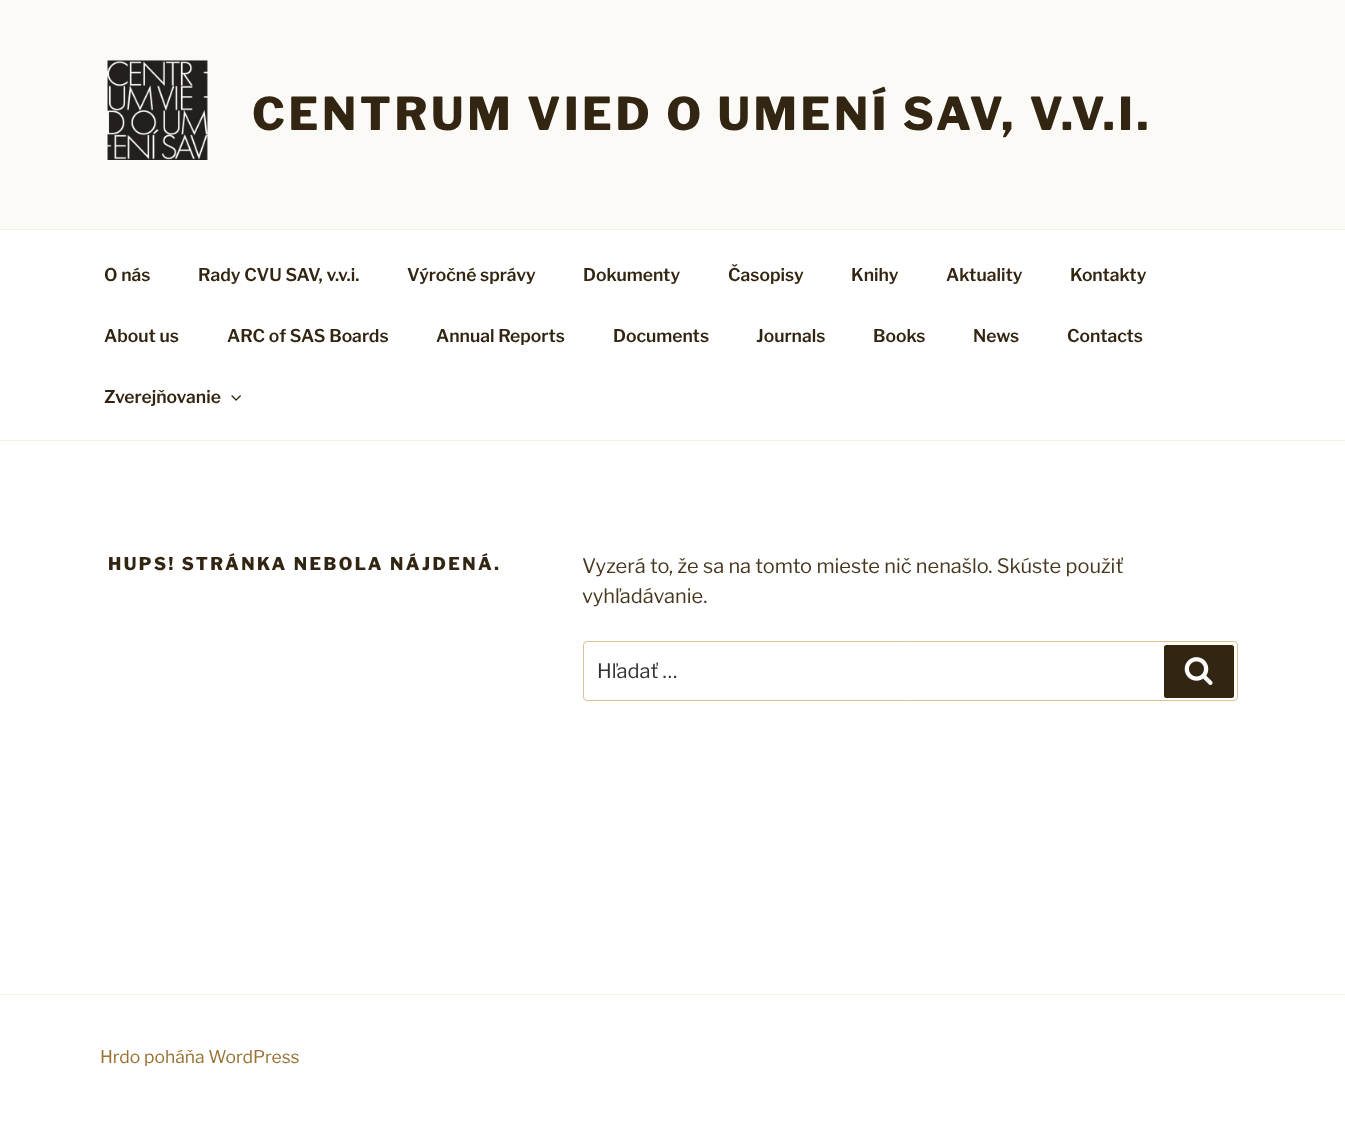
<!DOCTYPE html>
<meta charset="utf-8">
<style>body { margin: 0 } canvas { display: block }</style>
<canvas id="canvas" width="1345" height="1132"></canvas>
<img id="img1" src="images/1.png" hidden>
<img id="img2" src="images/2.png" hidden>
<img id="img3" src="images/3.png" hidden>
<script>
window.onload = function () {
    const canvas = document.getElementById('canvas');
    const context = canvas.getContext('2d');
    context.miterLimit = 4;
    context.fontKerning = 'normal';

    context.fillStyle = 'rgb(255, 255, 255)';
    context.fillRect(0, 0, 1345, 1132);
    context.fillStyle = 'rgb(252, 250, 247)';
    context.fillRect(0, 0, 1345, 229);
    context.drawImage(document.getElementById('img1'), 107, 60, 101, 100);
    context.fillStyle = 'rgb(246, 239, 228)';
    context.fillRect(0, 229, 1345, 1);
    context.fillRect(0, 440, 1345, 1);
    context.drawImage(document.getElementById('img2'), 231, 395, 10, 6);
    context.beginPath();
    context.roundRect(583.5, 641.5, 654, 59, 3.5);
    context.strokeStyle = 'rgb(221, 194, 152)';
    context.stroke();
    context.fillStyle = 'rgb(50, 37, 17)';
    context.beginPath();
    context.roundRect(1164, 645, 70, 53, 2.5);
    context.fill();
    context.drawImage(document.getElementById('img3'), 1184, 657, 29, 28);
    context.fillStyle = 'rgb(246, 239, 228)';
    context.fillRect(0, 994, 1345, 1);
    context.letterSpacing = '3.6px';
    context.font = '800 45px Libre Franklin';
    context.fillStyle = 'rgb(50, 37, 17)';
    context.fillText('CENTRUM VIED O UMENÍ SAV, V.V.I.', 252, 130);
    context.letterSpacing = '0px';
    context.font = '600 17.5px Libre Franklin';
    context.fillText('O nás', 104, 281);
    context.fillText('Rady CVU SAV, v.v.i.', 198, 281);
    context.fillText('Výročné správy', 407, 281);
    context.fillText('Dokumenty', 583, 281);
    context.fillText('Časopisy', 728, 281);
    context.fillText('Knihy', 851, 281);
    context.fillText('Aktuality', 946, 281);
    context.fillText('Kontakty', 1070, 281);
    context.fillText('About us', 104, 342);
    context.fillText('ARC of SAS Boards', 227, 342);
    context.fillText('Annual Reports', 436, 342);
    context.fillText('Documents', 613, 342);
    context.fillText('Journals', 756, 342);
    context.fillText('Books', 873, 342);
    context.fillText('News', 973, 342);
    context.fillText('Contacts', 1067, 342);
    context.fillText('Zverejňovanie', 104, 403);
    context.letterSpacing = '2.45px';
    context.font = '800 17.5px Libre Franklin';
    context.fillText('HUPS! STRÁNKA NEBOLA NÁJDENÁ.', 108, 570);
    context.letterSpacing = '0px';
    context.font = '20px Libre Franklin';
    context.fillStyle = 'rgb(71, 56, 31)';
    context.fillText('Vyzerá to, že sa na tomto mieste nič nenašlo. Skúste použiť', 582, 573);
    context.fillText('vyhľadávanie.', 582, 603);
    context.fillStyle = 'rgb(51, 51, 51)';
    context.fillText('Hľadať …', 597, 678);
    context.font = '17.5px Libre Franklin';
    context.fillStyle = 'rgb(153, 114, 51)';
    context.fillText('Hrdo poháňa WordPress', 100, 1063);
};
</script>
